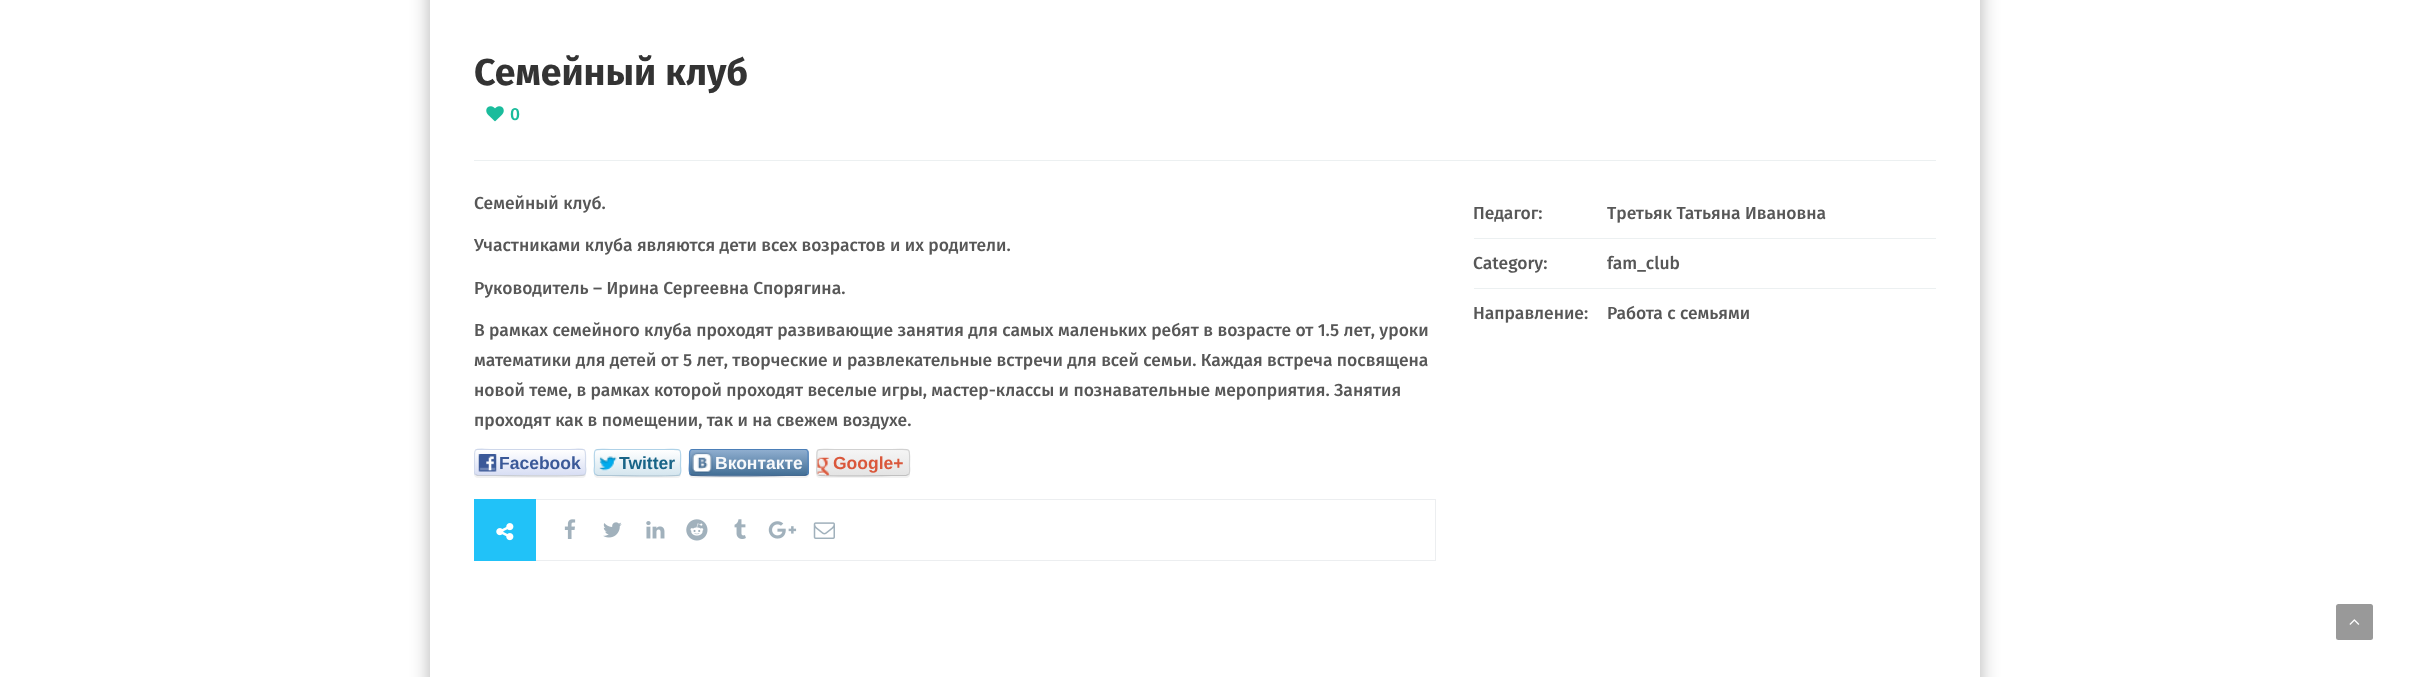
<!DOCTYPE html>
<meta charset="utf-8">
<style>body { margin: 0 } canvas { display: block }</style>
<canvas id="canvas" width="2410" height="677"></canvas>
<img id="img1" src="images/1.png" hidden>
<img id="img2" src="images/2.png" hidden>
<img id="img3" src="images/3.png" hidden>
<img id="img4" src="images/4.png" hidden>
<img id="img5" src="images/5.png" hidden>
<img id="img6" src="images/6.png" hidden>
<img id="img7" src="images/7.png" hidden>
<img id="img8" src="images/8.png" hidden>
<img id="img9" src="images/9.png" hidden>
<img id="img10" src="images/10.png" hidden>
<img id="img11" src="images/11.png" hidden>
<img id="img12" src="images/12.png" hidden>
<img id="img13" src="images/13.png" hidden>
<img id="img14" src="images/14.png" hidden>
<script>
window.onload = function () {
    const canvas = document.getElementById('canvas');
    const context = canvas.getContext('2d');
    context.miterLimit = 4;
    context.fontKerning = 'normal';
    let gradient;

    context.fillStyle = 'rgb(255, 255, 255)';
    context.fillRect(0, 0, 2410, 677);
    context.save();
    context.beginPath();
    context.moveTo(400, 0);
    context.lineTo(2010, 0);
    context.lineTo(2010, 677);
    context.lineTo(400, 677);
    context.closePath();
    context.moveTo(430, -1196);
    context.lineTo(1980, -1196);
    context.lineTo(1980, 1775);
    context.lineTo(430, 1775);
    context.closePath();
    context.clip('evenodd');
    context.fillStyle = 'rgba(0, 0, 0, 0.3)';
    context.filter = 'blur(9.5px)';
    context.beginPath();
    context.rect(430, -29, 1550, 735);
    context.fill();
    context.filter = 'none';
    context.restore();
    context.fillStyle = 'rgb(236, 240, 241)';
    context.fillRect(474, 160, 1462, 1);
    context.drawImage(document.getElementById('img1'), 486, 106, 18, 16);
    context.fillStyle = 'rgba(0, 0, 0, 0.05)';
    context.filter = 'blur(0.5px)';
    context.beginPath();
    context.roundRect(474, 450, 112, 28, 4);
    context.fill();
    context.filter = 'none';
    context.save();
    context.beginPath();
    context.roundRect(474, 449, 112, 27, 4);
    context.clip();
    gradient = context.createLinearGradient(530, 425, 530, 450);
    gradient.addColorStop(0, 'rgb(255, 255, 255)');
    gradient.addColorStop(1, 'rgb(216, 222, 244)');
    context.fillStyle = gradient;
    context.fillRect(474, 449, 112, 1);
    gradient = context.createLinearGradient(530, 450, 530, 475);
    gradient.addColorStop(0, 'rgb(255, 255, 255)');
    gradient.addColorStop(1, 'rgb(216, 222, 244)');
    context.fillStyle = gradient;
    context.fillRect(474, 450, 112, 25);
    context.restore();
    context.beginPath();
    context.moveTo(584.5, 474.5);
    context.lineTo(584, 475);
    context.bezierCurveTo(582, 476.5, 504.5, 475.5, 495, 475.5);
    context.lineTo(477.5, 475.5);
    context.lineTo(475.5, 474.5);
    context.strokeStyle = 'rgba(189, 194, 203, 0.8)';
    context.lineWidth = 1.2;
    context.stroke();
    context.save();
    context.beginPath();
    context.rect(474, 0, 1462, 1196);
    context.clip();
    context.beginPath();
    context.moveTo(475.5, 474.5);
    context.bezierCurveTo(473, 472.5, 474.5, 468, 474.5, 466);
    context.bezierCurveTo(474.5, 445, 471.5, 449.5, 495, 449.5);
    context.lineTo(565, 449.5);
    context.bezierCurveTo(588.5, 449.5, 585.5, 445, 585.5, 466);
    context.bezierCurveTo(585.5, 468, 587, 472.5, 584.5, 474.5);
    context.strokeStyle = 'rgba(202, 212, 231, 0.8)';
    context.stroke();
    context.restore();
    context.drawImage(document.getElementById('img2'), 478, 454, 19, 18);
    context.filter = 'blur(0.5px)';
    context.beginPath();
    context.roundRect(594, 450, 87, 28, 4);
    context.fill();
    context.filter = 'none';
    context.save();
    context.beginPath();
    context.roundRect(594, 449, 87, 27, 4);
    context.clip();
    gradient = context.createLinearGradient(638, 425, 638, 450);
    gradient.addColorStop(0, 'rgb(255, 255, 255)');
    gradient.addColorStop(1, 'rgb(213, 230, 239)');
    context.fillStyle = gradient;
    context.fillRect(594, 449, 87, 1);
    gradient = context.createLinearGradient(638, 450, 638, 475);
    gradient.addColorStop(0, 'rgb(255, 255, 255)');
    gradient.addColorStop(1, 'rgb(213, 230, 239)');
    context.fillStyle = gradient;
    context.fillRect(594, 450, 87, 25);
    context.restore();
    context.beginPath();
    context.moveTo(679.5, 474.5);
    context.lineTo(679.5, 475);
    context.bezierCurveTo(677.5, 476.5, 618.5, 475.5, 611, 475.5);
    context.lineTo(597.5, 475.5);
    context.lineTo(595.5, 474.5);
    context.strokeStyle = 'rgba(158, 186, 204, 0.8)';
    context.stroke();
    context.beginPath();
    context.moveTo(595.5, 474.5);
    context.bezierCurveTo(593, 472.5, 594.5, 468, 594.5, 466);
    context.bezierCurveTo(594.5, 446.5, 591, 449.5, 611, 449.5);
    context.lineTo(664, 449.5);
    context.bezierCurveTo(684, 449.5, 680.5, 446.5, 680.5, 466);
    context.bezierCurveTo(680.5, 468, 682, 472.5, 679.5, 474.5);
    context.strokeStyle = 'rgba(164, 204, 229, 0.8)';
    context.stroke();
    context.drawImage(document.getElementById('img3'), 599, 456, 18, 15);
    context.filter = 'blur(0.5px)';
    context.beginPath();
    context.roundRect(689, 450, 120, 28, 4);
    context.fill();
    context.filter = 'none';
    context.save();
    context.beginPath();
    context.roundRect(689, 449, 120, 27, 4);
    context.clip();
    gradient = context.createLinearGradient(749, 425, 749, 450);
    gradient.addColorStop(0, 'rgb(143, 174, 207)');
    gradient.addColorStop(1, 'rgb(67, 111, 150)');
    context.fillStyle = gradient;
    context.fillRect(689, 449, 120, 1);
    gradient = context.createLinearGradient(749, 450, 749, 475);
    gradient.addColorStop(0, 'rgb(143, 174, 207)');
    gradient.addColorStop(1, 'rgb(67, 111, 150)');
    context.fillStyle = gradient;
    context.fillRect(689, 450, 120, 25);
    gradient = context.createLinearGradient(749, 475, 749, 500);
    gradient.addColorStop(0, 'rgb(143, 174, 207)');
    gradient.addColorStop(1, 'rgb(67, 111, 150)');
    context.fillStyle = gradient;
    context.fillRect(689, 475, 120, 1);
    context.restore();
    context.beginPath();
    context.moveTo(807, 474.5);
    context.lineTo(805, 475.5);
    context.lineTo(786, 475.5);
    context.bezierCurveTo(776.5, 475.5, 693, 476.5, 691, 475);
    context.lineTo(690.5, 474.5);
    context.strokeStyle = 'rgba(52, 88, 127, 0.8)';
    context.stroke();
    context.beginPath();
    context.moveTo(690.5, 474.5);
    context.bezierCurveTo(688, 472.5, 689.5, 465, 689.5, 462.5);
    context.lineTo(689.5, 456);
    context.bezierCurveTo(689.5, 453.5, 689, 449.5, 692.5, 449.5);
    context.lineTo(805, 449.5);
    context.bezierCurveTo(808.5, 449.5, 808, 453.5, 808, 456);
    context.lineTo(808, 462.5);
    context.bezierCurveTo(808, 465, 809.5, 472.5, 807, 474.5);
    context.strokeStyle = 'rgba(78, 131, 193, 0.8)';
    context.stroke();
    context.drawImage(document.getElementById('img4'), 691, 452, 22, 21);
    context.filter = 'blur(0.5px)';
    context.beginPath();
    context.roundRect(816, 450, 94, 28, 4);
    context.fill();
    context.filter = 'none';
    context.save();
    context.beginPath();
    context.roundRect(816, 449, 94, 27, 4);
    context.clip();
    gradient = context.createLinearGradient(863, 425, 863, 450);
    gradient.addColorStop(0, 'rgb(245, 245, 245)');
    gradient.addColorStop(1, 'rgb(228, 228, 228)');
    context.fillStyle = gradient;
    context.fillRect(816, 449, 94, 1);
    gradient = context.createLinearGradient(863, 450, 863, 475);
    gradient.addColorStop(0, 'rgb(245, 245, 245)');
    gradient.addColorStop(1, 'rgb(228, 228, 228)');
    context.fillStyle = gradient;
    context.fillRect(816, 450, 94, 25);
    gradient = context.createLinearGradient(863, 475, 863, 500);
    gradient.addColorStop(0, 'rgb(245, 245, 245)');
    gradient.addColorStop(1, 'rgb(228, 228, 228)');
    context.fillStyle = gradient;
    context.fillRect(816, 475, 94, 1);
    context.restore();
    context.beginPath();
    context.moveTo(908.5, 474.5);
    context.lineTo(906, 475.5);
    context.lineTo(892, 475.5);
    context.bezierCurveTo(884, 475.5, 820, 476.5, 818, 475);
    context.lineTo(818, 474.5);
    context.strokeStyle = 'rgba(179, 179, 179, 0.8)';
    context.stroke();
    context.beginPath();
    context.moveTo(818, 474.5);
    context.bezierCurveTo(815.5, 472.5, 817, 468, 817, 466);
    context.bezierCurveTo(817, 446, 813.5, 449.5, 834.5, 449.5);
    context.lineTo(892, 449.5);
    context.bezierCurveTo(912.5, 449.5, 909.5, 446, 909.5, 466);
    context.bezierCurveTo(909.5, 468, 910.5, 472.5, 908.5, 474.5);
    context.strokeStyle = 'rgba(204, 204, 204, 0.8)';
    context.stroke();
    context.drawImage(document.getElementById('img5'), 817, 457, 13, 19);
    context.fillStyle = 'rgb(33, 194, 248)';
    context.fillRect(474, 499, 62, 62);
    context.drawImage(document.getElementById('img6'), 496, 523, 18, 18);
    context.fillStyle = 'rgb(236, 238, 240)';
    context.fillRect(536, 499, 900, 1);
    context.fillRect(1435, 499, 1, 62);
    context.fillRect(536, 560, 900, 1);
    context.drawImage(document.getElementById('img7'), 564, 519, 12, 20);
    context.drawImage(document.getElementById('img8'), 603, 522, 19, 16);
    context.drawImage(document.getElementById('img9'), 646, 521, 19, 18);
    context.drawImage(document.getElementById('img10'), 686, 519, 22, 22);
    context.drawImage(document.getElementById('img11'), 734, 519, 12, 20);
    context.drawImage(document.getElementById('img12'), 768, 521, 29, 18);
    context.drawImage(document.getElementById('img13'), 813, 522, 22, 17);
    context.fillStyle = 'rgb(236, 240, 241)';
    context.fillRect(1474, 238, 462, 1);
    context.fillRect(1474, 288, 462, 1);
    context.fillStyle = 'rgb(153, 153, 153)';
    context.beginPath();
    context.roundRect(2336, 604, 37, 36, 2.5);
    context.fill();
    context.drawImage(document.getElementById('img14'), 2349, 619, 11, 6);
    context.font = 'bold 37.5px Fira Sans';
    context.fillStyle = 'rgb(51, 51, 51)';
    context.fillText('Семейный клуб', 474, 85);
    context.font = '500 17.5px Fira Sans';
    context.fillStyle = 'rgb(26, 188, 156)';
    context.fillText('0', 510, 120);
    context.fillStyle = 'rgb(87, 87, 87)';
    context.fillText('Семейный клуб.', 474, 209);
    context.fillText('Участниками клуба являются дети всех возрастов и их родители.', 474, 251);
    context.fillText('Руководитель – Ирина Сергеевна Спорягина.', 474, 294);
    context.fillText('В рамках семейного клуба проходят развивающие занятия для самых маленьких ребят в возрасте от 1.5 лет, уроки', 474, 336);
    context.fillText('математики для детей от 5 лет, творческие и развлекательные встречи для всей семьи. Каждая встреча посвящена', 474, 366);
    context.fillText('новой теме, в рамках которой проходят веселые игры, мастер-классы и познавательные мероприятия. Занятия', 474, 396);
    context.fillText('проходят как в помещении, так и на свежем воздухе.', 474, 426);
    context.font = 'bold 17.5px Liberation Sans';
    context.fillStyle = 'rgb(59, 89, 152)';
    context.fillText('Facebook', 499, 469);
    context.fillStyle = 'rgb(24, 100, 135)';
    context.fillText('Twitter', 619, 469);
    context.fillStyle = 'rgb(247, 249, 251)';
    context.fillText('Вконтакте', 715, 469);
    context.fillStyle = 'rgb(218, 87, 59)';
    context.fillText('Google+', 833, 469);
    context.font = '500 17.5px Fira Sans';
    context.fillStyle = 'rgb(87, 87, 87)';
    context.fillText('Педагог:', 1473, 219);
    context.fillText('Третьяк Татьяна Ивановна', 1607, 219);
    context.fillText('Category:', 1473, 269);
    context.fillText('fam_club', 1607, 269);
    context.fillText('Направление:', 1473, 319);
    context.fillText('Работа с семьями', 1607, 319);
};
</script>
